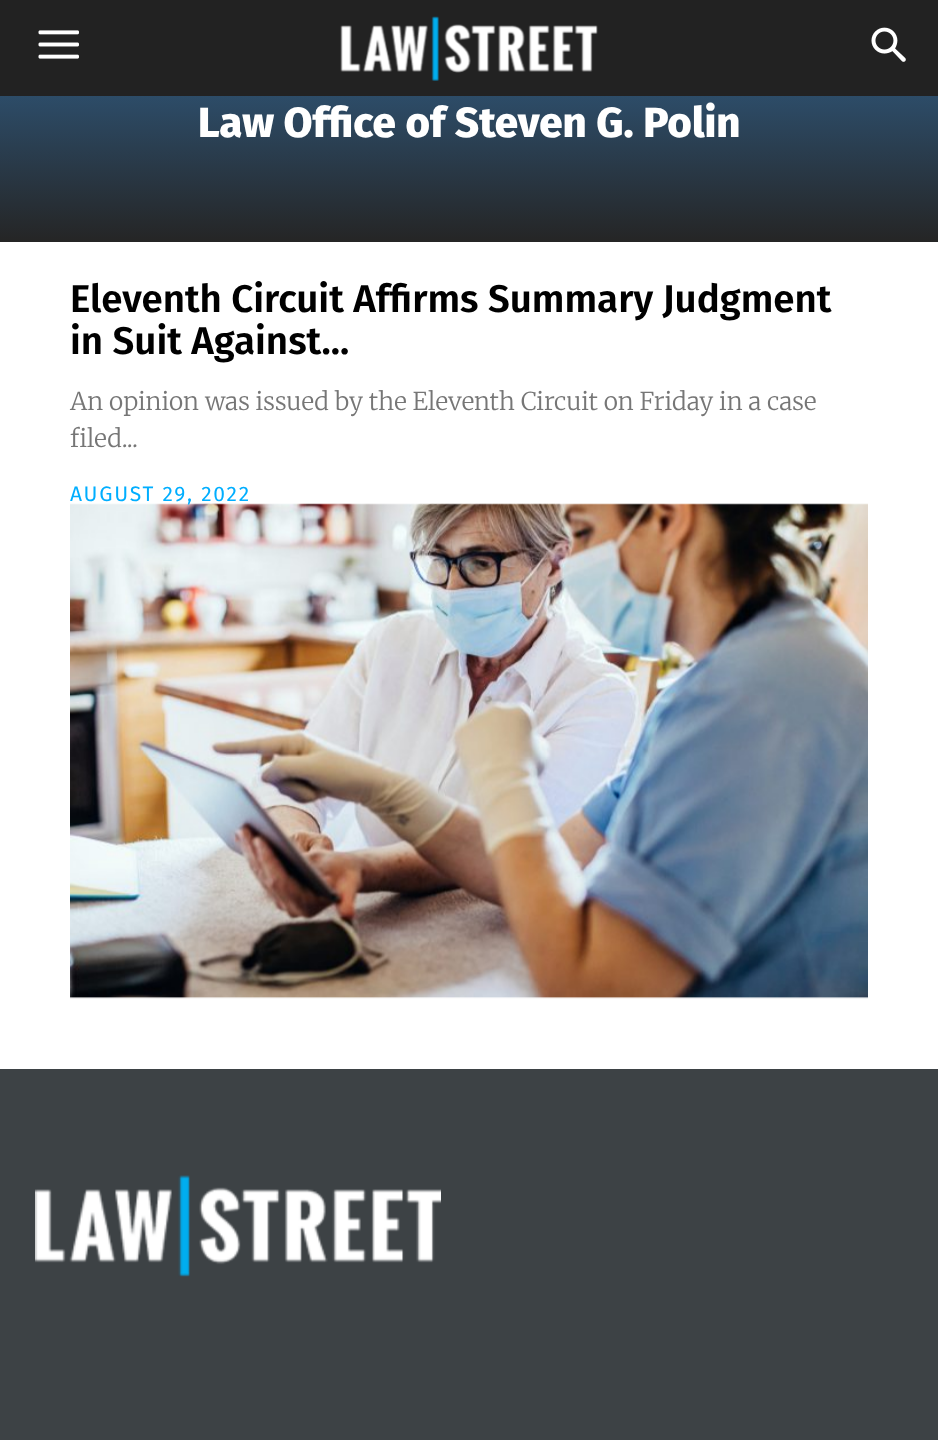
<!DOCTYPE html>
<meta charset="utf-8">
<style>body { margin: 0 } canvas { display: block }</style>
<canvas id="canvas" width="938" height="1440"></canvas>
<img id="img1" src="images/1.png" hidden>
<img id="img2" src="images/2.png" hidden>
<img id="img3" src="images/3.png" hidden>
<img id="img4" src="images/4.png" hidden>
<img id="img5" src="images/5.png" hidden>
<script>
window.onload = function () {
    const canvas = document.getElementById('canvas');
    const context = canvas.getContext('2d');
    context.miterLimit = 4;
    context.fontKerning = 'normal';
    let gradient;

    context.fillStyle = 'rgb(255, 255, 255)';
    context.fillRect(0, 0, 938, 1440);
    context.fillStyle = 'rgb(34, 34, 34)';
    context.fillRect(0, 0, 938, 96);
    context.drawImage(document.getElementById('img1'), 38, 30, 41, 29);
    context.drawImage(document.getElementById('img2'), 340, 16, 258, 65);
    context.drawImage(document.getElementById('img3'), 871, 27, 35, 35);
    gradient = context.createLinearGradient(469, -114, 469, 242);
    gradient.addColorStop(0, 'rgb(56, 132, 200)');
    gradient.addColorStop(1, 'rgb(37, 37, 37)');
    context.fillStyle = gradient;
    context.fillRect(0, 96, 938, 146);
    context.drawImage(document.getElementById('img4'), 70, 503, 798, 496);
    context.fillStyle = 'rgb(61, 66, 69)';
    context.fillRect(0, 1069, 938, 371);
    context.drawImage(document.getElementById('img5'), 35, 1175, 406, 102);
    context.font = '800 42px Fira Sans';
    context.fillStyle = 'rgb(255, 255, 255)';
    context.fillText('Law Office of Steven G. Polin', 198, 137);
    context.font = '600 38.5px Fira Sans';
    context.fillStyle = 'rgb(0, 0, 0)';
    context.fillText('Eleventh Circuit Affirms Summary Judgment', 70, 312);
    context.fillText('in Suit Against...', 70, 354);
    context.font = '300 24.5px Merriweather';
    context.fillStyle = 'rgb(118, 118, 118)';
    context.fillText('An opinion was issued by the Eleventh Circuit on Friday in a case', 70, 410);
    context.fillText('filed...', 70, 447);
    context.letterSpacing = '1.75px';
    context.font = '21px Fira Sans';
    context.fillStyle = 'rgb(0, 174, 255)';
    context.fillText('AUGUST 29, 2022', 70, 501);
};
</script>
